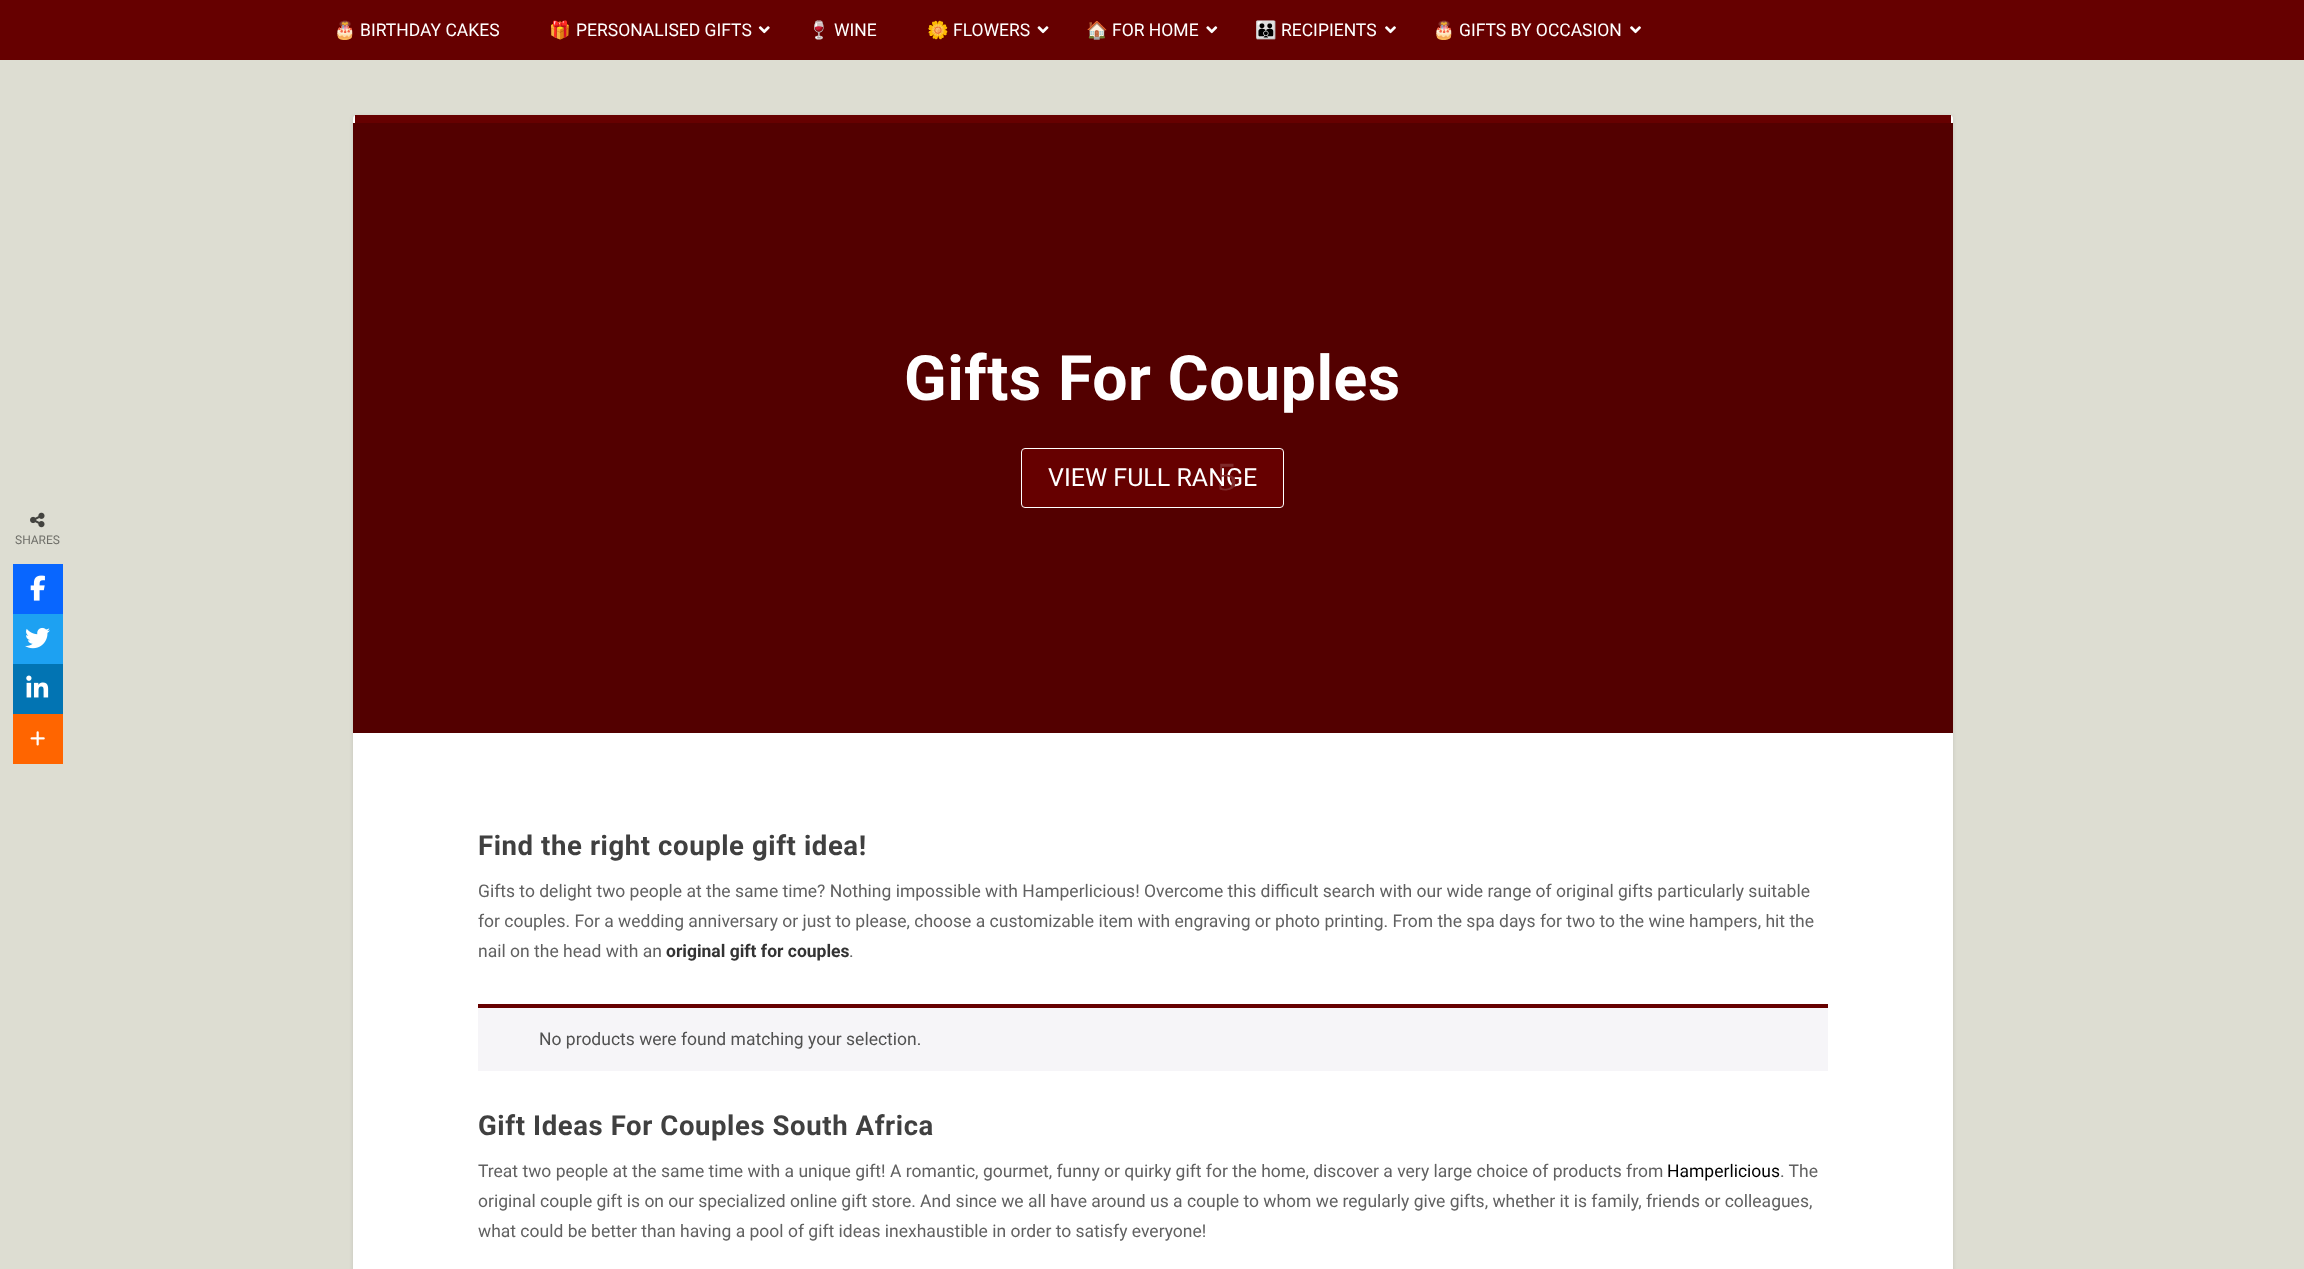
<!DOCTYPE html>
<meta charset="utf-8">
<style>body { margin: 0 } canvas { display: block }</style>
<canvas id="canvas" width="2304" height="1269"></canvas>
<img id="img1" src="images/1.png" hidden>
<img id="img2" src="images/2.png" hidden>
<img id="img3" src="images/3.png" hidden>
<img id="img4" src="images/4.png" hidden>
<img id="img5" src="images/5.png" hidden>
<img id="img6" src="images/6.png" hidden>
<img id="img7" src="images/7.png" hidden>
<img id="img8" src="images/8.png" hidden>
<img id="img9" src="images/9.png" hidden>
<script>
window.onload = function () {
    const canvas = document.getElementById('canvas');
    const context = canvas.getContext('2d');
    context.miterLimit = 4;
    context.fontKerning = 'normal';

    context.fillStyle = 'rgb(221, 221, 210)';
    context.fillRect(0, 0, 2304, 1269);
    context.drawImage(document.getElementById('img1'), 30, 512, 15, 16);
    context.fillStyle = 'rgb(8, 102, 255)';
    context.fillRect(13, 564, 50, 50);
    context.drawImage(document.getElementById('img2'), 30, 575, 15, 26);
    context.fillStyle = 'rgb(29, 161, 242)';
    context.fillRect(13, 614, 50, 50);
    context.drawImage(document.getElementById('img3'), 25, 627, 25, 22);
    context.fillStyle = 'rgb(2, 116, 179)';
    context.fillRect(13, 664, 50, 50);
    context.drawImage(document.getElementById('img4'), 26, 675, 23, 23);
    context.fillStyle = 'rgb(255, 101, 0)';
    context.fillRect(13, 714, 50, 50);
    context.drawImage(document.getElementById('img5'), 30, 731, 15, 15);
    context.fillStyle = 'rgb(102, 0, 0)';
    context.fillRect(0, 0, 2304, 60);
    context.drawImage(document.getElementById('img6'), 758, 26, 12, 8);
    context.drawImage(document.getElementById('img7'), 1037, 26, 12, 8);
    context.drawImage(document.getElementById('img8'), 1206, 26, 12, 8);
    context.drawImage(document.getElementById('img9'), 1385, 26, 11, 8);
    context.drawImage(document.getElementById('img9'), 1630, 26, 11, 8);
    context.fillStyle = 'rgba(0, 0, 0, 0.1)';
    context.filter = 'blur(2px)';
    context.beginPath();
    context.roundRect(353, 116, 1600, 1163, 4);
    context.fill();
    context.filter = 'none';
    context.fillStyle = 'rgb(255, 255, 255)';
    context.beginPath();
    context.roundRect(353, 115, 1600, 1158, 4);
    context.fill();
    context.fillStyle = 'rgb(102, 0, 0)';
    context.fillRect(355, 115, 1596, 8);
    context.fillStyle = 'rgb(83, 0, 0)';
    context.fillRect(353, 123, 1600, 610);
    context.fillStyle = 'rgb(102, 0, 0)';
    context.beginPath();
    context.roundRect(1021.5, 448.5, 262, 59, 3.5);
    context.fill();
    context.strokeStyle = 'rgb(255, 255, 255)';
    context.stroke();
    context.fillStyle = 'rgb(246, 245, 248)';
    context.fillRect(478, 1008, 1350, 63);
    context.fillStyle = 'rgb(102, 0, 0)';
    context.fillRect(478, 1004, 1350, 4);
    context.font = '12px Roboto';
    context.fillStyle = 'rgb(111, 111, 105)';
    context.fillText('SHARES', 15, 544);
    context.font = '17.5px Noto Color Emoji';
    context.fillStyle = 'rgb(255, 255, 255)';
    context.fillText('🎂', 334, 36);
    context.font = '17.5px Roboto';
    context.fillText('BIRTHDAY CAKES', 360, 36);
    context.font = '17.5px Noto Color Emoji';
    context.fillText('🎁', 549, 36);
    context.font = '17.5px Roboto';
    context.fillText('PERSONALISED GIFTS', 576, 36);
    context.font = '17.5px Noto Color Emoji';
    context.fillText('🍷', 808, 36);
    context.font = '17.5px Roboto';
    context.fillText('WINE', 834, 36);
    context.font = '17.5px Noto Color Emoji';
    context.fillText('🌼', 927, 36);
    context.font = '17.5px Roboto';
    context.fillText('FLOWERS', 953, 36);
    context.font = '17.5px Noto Color Emoji';
    context.fillText('🏠', 1086, 36);
    context.font = '17.5px Roboto';
    context.fillText('FOR HOME', 1112, 36);
    context.font = '17.5px Noto Color Emoji';
    context.fillText('👪', 1255, 36);
    context.font = '17.5px Roboto';
    context.fillText('RECIPIENTS', 1281, 36);
    context.font = '17.5px Noto Color Emoji';
    context.fillText('🎂', 1433, 36);
    context.font = '17.5px Roboto';
    context.fillText('GIFTS BY OCCASION', 1459, 36);
    context.letterSpacing = '0.6px';
    context.font = 'bold 62.5px Roboto';
    context.fillText('Gifts For Couples', 904, 400);
    context.letterSpacing = '0px';
    context.font = '25px Roboto';
    context.fillText('VIEW FULL RANGE', 1048, 486);
    context.font = '40px Liberation Serif';
    context.fillStyle = 'rgb(127, 42, 42)';
    context.fillText('5', 1217, 490);
    context.letterSpacing = '0.6px';
    context.font = 'bold 27.5px Roboto';
    context.fillStyle = 'rgb(64, 64, 64)';
    context.fillText('Find the right couple gift idea!', 478, 855);
    context.letterSpacing = '0px';
    context.font = '17.5px Roboto';
    context.fillStyle = 'rgb(97, 97, 97)';
    context.fillText('Gifts to delight two people at the same time? Nothing impossible with Hamperlicious! Overcome this difficult search with our wide range of original gifts particularly suitable', 478, 897);
    context.fillText('for couples. For a wedding anniversary or just to please, choose a customizable item with engraving or photo printing. From the spa days for two to the wine hampers, hit the', 478, 927);
    context.fillText('nail on the head with an', 478, 957);
    context.font = 'bold 17.5px Roboto';
    context.fillStyle = 'rgb(51, 51, 51)';
    context.fillText('original gift for couples', 666, 957);
    context.font = '17.5px Roboto';
    context.fillStyle = 'rgb(97, 97, 97)';
    context.fillText('.', 849, 957);
    context.fillStyle = 'rgb(81, 81, 81)';
    context.fillText('No products were found matching your selection.', 539, 1045);
    context.letterSpacing = '0.6px';
    context.font = 'bold 27.5px Roboto';
    context.fillStyle = 'rgb(64, 64, 64)';
    context.fillText('Gift Ideas For Couples South Africa', 478, 1135);
    context.letterSpacing = '0px';
    context.font = '17.5px Roboto';
    context.fillStyle = 'rgb(97, 97, 97)';
    context.fillText('Treat two people at the same time with a unique gift! A romantic, gourmet, funny or quirky gift for the home, discover a very large choice of products from', 478, 1177);
    context.fillStyle = 'rgb(0, 0, 0)';
    context.fillText('Hamperlicious', 1667, 1177);
    context.fillStyle = 'rgb(97, 97, 97)';
    context.fillText('. The', 1780, 1177);
    context.fillText('original couple gift is on our specialized online gift store. And since we all have around us a couple to whom we regularly give gifts, whether it is family, friends or colleagues,', 478, 1207);
    context.fillText('what could be better than having a pool of gift ideas inexhaustible in order to satisfy everyone!', 478, 1237);
};
</script>
